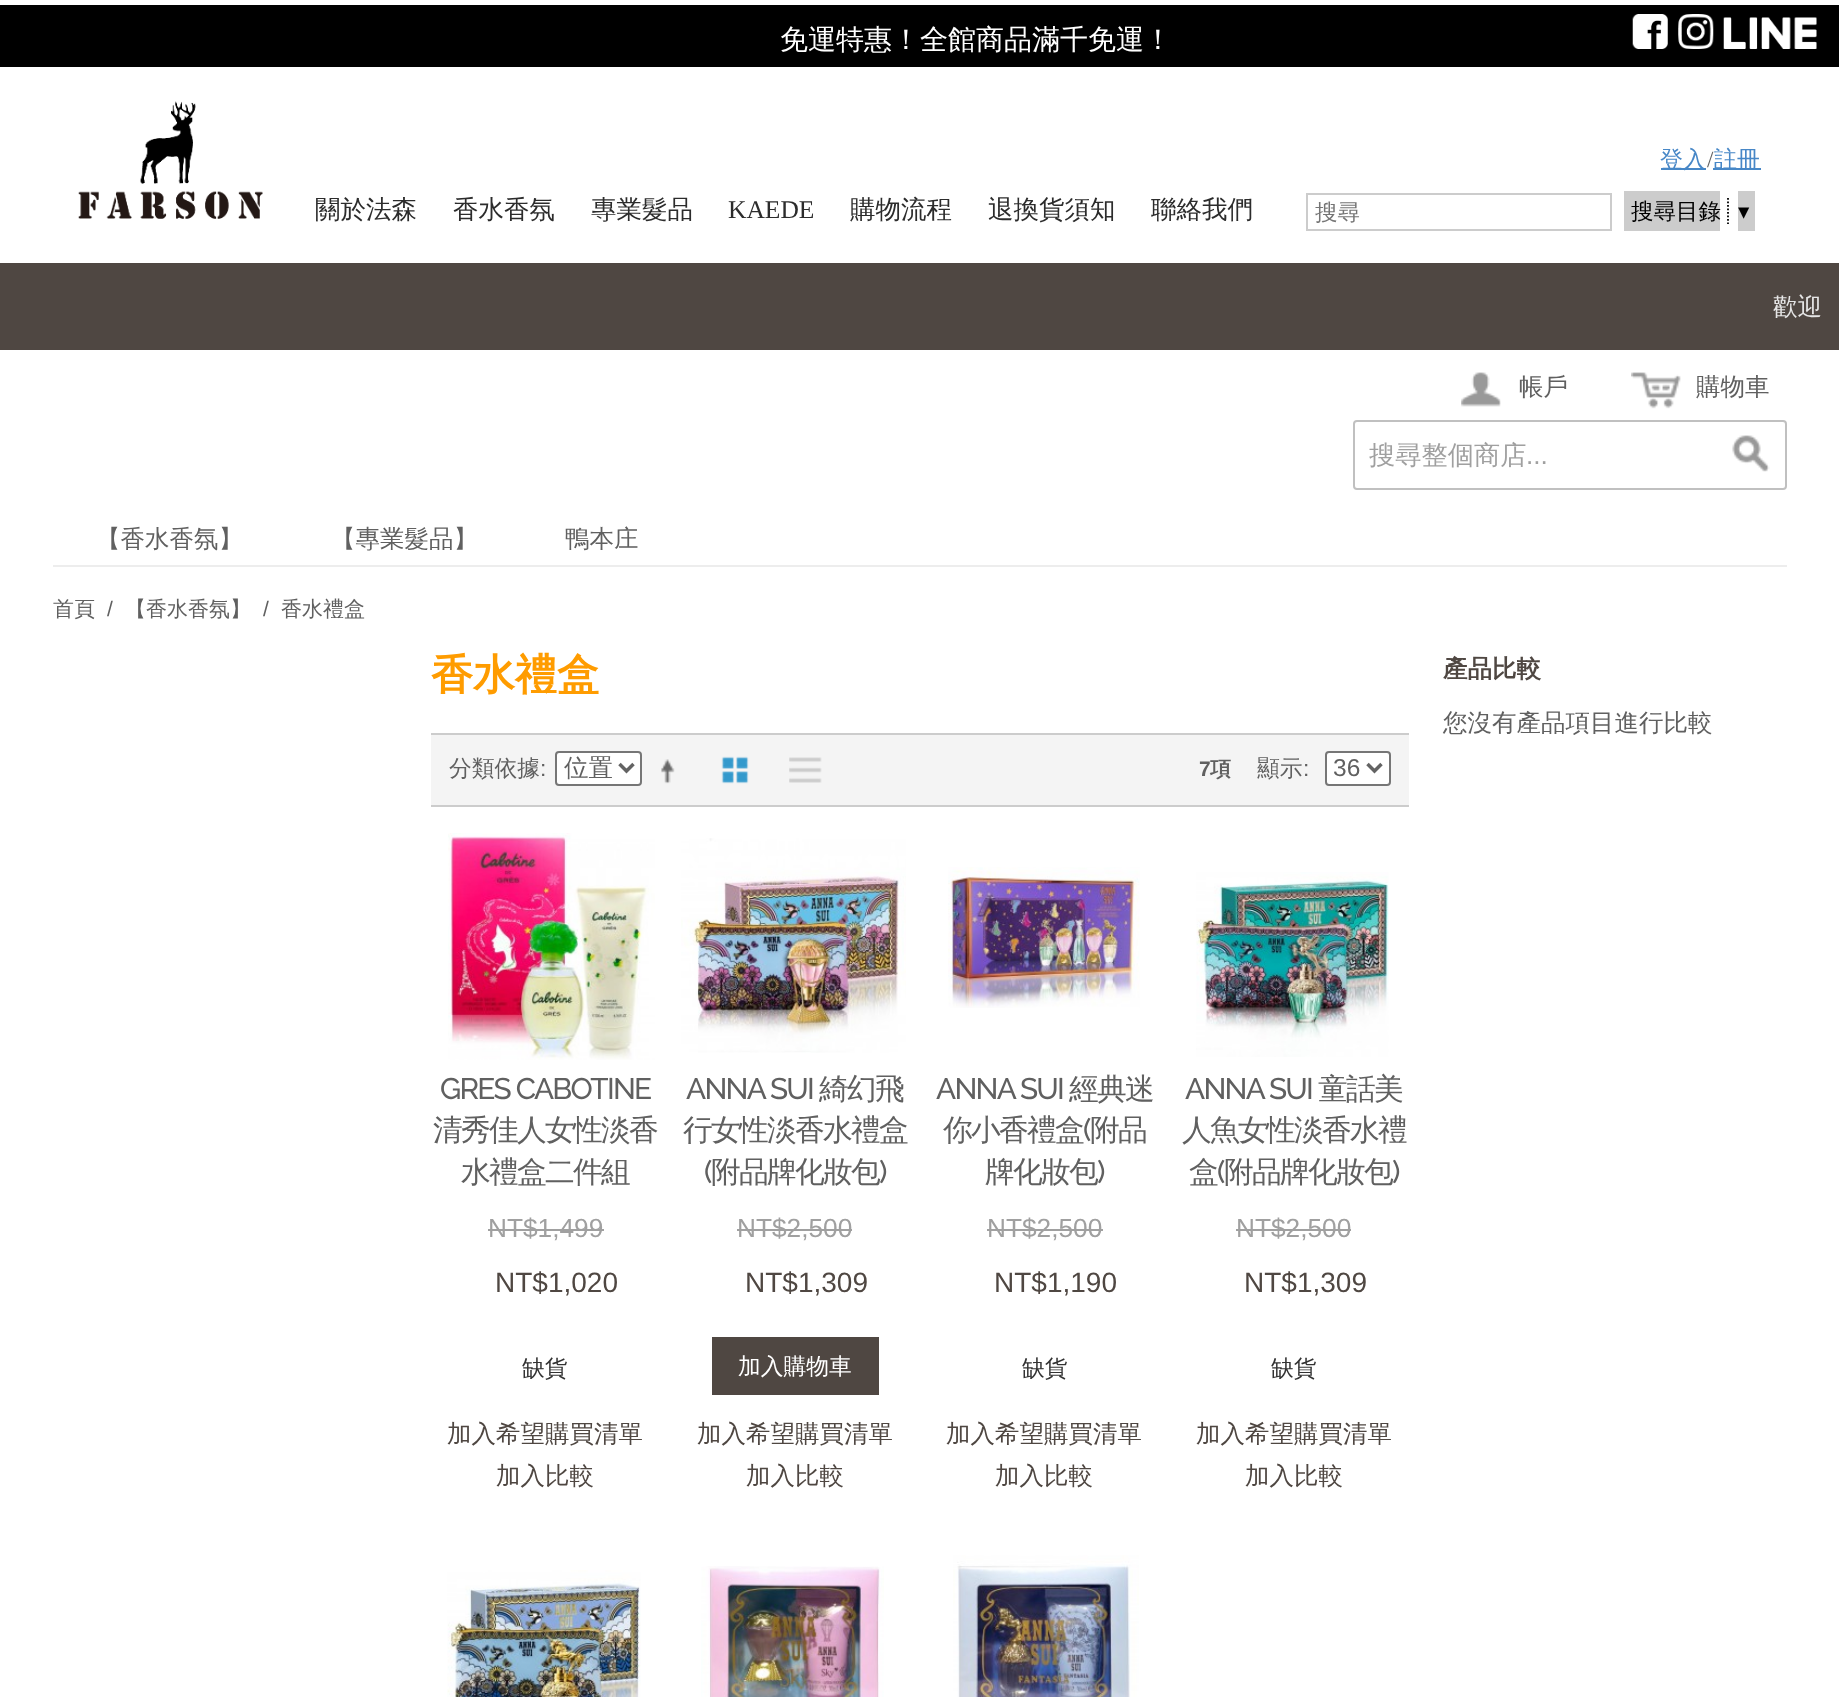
<!DOCTYPE html>
<meta charset="utf-8">
<style>body { margin: 0 } canvas { display: block }</style>
<canvas id="canvas" width="1839" height="1697"></canvas>
<img id="img1" src="images/1.png" hidden>
<img id="img2" src="images/2.png" hidden>
<img id="img3" src="images/3.png" hidden>
<img id="img4" src="images/4.png" hidden>
<img id="img5" src="images/5.png" hidden>
<img id="img6" src="images/6.png" hidden>
<img id="img7" src="images/7.png" hidden>
<img id="img8" src="images/8.png" hidden>
<img id="img9" src="images/9.png" hidden>
<img id="img10" src="images/10.png" hidden>
<img id="img11" src="images/11.png" hidden>
<img id="img12" src="images/12.png" hidden>
<img id="img13" src="images/13.png" hidden>
<img id="img14" src="images/14.png" hidden>
<img id="img15" src="images/15.png" hidden>
<img id="img16" src="images/16.png" hidden>
<img id="img17" src="images/17.png" hidden>
<script>
window.onload = function () {
    const canvas = document.getElementById('canvas');
    const context = canvas.getContext('2d');
    context.miterLimit = 4;
    context.fontKerning = 'normal';

    context.fillStyle = 'rgb(255, 255, 255)';
    context.fillRect(0, 0, 1839, 1697);
    context.fillStyle = 'rgb(0, 0, 0)';
    context.fillRect(0, 5, 1839, 62);
    context.drawImage(document.getElementById('img1'), 1632, 14, 36, 35);
    context.drawImage(document.getElementById('img2'), 1678, 14, 36, 35);
    context.drawImage(document.getElementById('img3'), 1723, 17, 94, 32);
    context.drawImage(document.getElementById('img4'), 78, 101, 185, 118);
    context.fillStyle = 'rgb(71, 135, 199)';
    context.fillRect(1661, 168, 45, 2);
    context.fillRect(1713, 168, 48, 2);
    context.strokeStyle = 'rgb(204, 204, 204)';
    context.lineWidth = 2;
    context.strokeRect(1307, 194, 304, 36);
    context.fillStyle = 'rgb(204, 204, 204)';
    context.fillRect(1624, 191, 96, 40);
    context.beginPath();
    context.moveTo(1728, 198);
    context.lineTo(1728, 224);
    context.strokeStyle = 'rgb(0, 0, 0)';
    context.lineWidth = 1.8;
    context.setLineDash([1.75, 1.75]);
    context.stroke();
    context.fillRect(1738, 191, 17, 40);
    context.fillStyle = 'rgb(79, 71, 66)';
    context.fillRect(0, 263, 1839, 87);
    context.drawImage(document.getElementById('img5'), 1461, 372, 40, 35);
    context.drawImage(document.getElementById('img6'), 1631, 372, 50, 37);
    context.beginPath();
    context.roundRect(1354, 421, 432, 68, 3);
    context.strokeStyle = 'rgb(192, 192, 192)';
    context.lineWidth = 2;
    context.setLineDash([]);
    context.stroke();
    context.drawImage(document.getElementById('img7'), 1732, 435, 38, 37);
    context.fillStyle = 'rgb(237, 237, 237)';
    context.fillRect(53, 565, 1734, 2);
    context.fillStyle = 'rgb(244, 244, 244)';
    context.fillRect(431, 735, 978, 70);
    context.fillStyle = 'rgb(204, 204, 204)';
    context.fillRect(431, 733, 978, 2);
    context.fillRect(431, 805, 978, 2);
    context.fillStyle = 'rgb(255, 255, 255)';
    context.beginPath();
    context.roundRect(556, 752, 85, 33, 3);
    context.fill();
    context.strokeStyle = 'rgb(118, 118, 118)';
    context.stroke();
    context.beginPath();
    context.moveTo(619.5, 764);
    context.lineTo(626.5, 771);
    context.lineTo(633.5, 764);
    context.strokeStyle = 'rgb(99, 99, 99)';
    context.lineWidth = 3.5;
    context.stroke();
    context.drawImage(document.getElementById('img8'), 661, 759, 14, 25);
    context.drawImage(document.getElementById('img9'), 721, 756, 28, 28);
    context.drawImage(document.getElementById('img10'), 789, 757, 33, 26);
    context.beginPath();
    context.roundRect(1326, 752, 64, 33, 3);
    context.fill();
    context.strokeStyle = 'rgb(118, 118, 118)';
    context.lineWidth = 2;
    context.stroke();
    context.beginPath();
    context.moveTo(1367.5, 764);
    context.lineTo(1374.5, 771);
    context.lineTo(1381.5, 764);
    context.strokeStyle = 'rgb(99, 99, 99)';
    context.lineWidth = 3.5;
    context.stroke();
    context.drawImage(document.getElementById('img11'), 448, 833, 207, 227);
    context.fillStyle = 'rgb(160, 160, 160)';
    context.fillRect(488, 1229, 116, 2);
    context.drawImage(document.getElementById('img12'), 681, 838, 225, 215);
    context.fillRect(737, 1229, 115, 2);
    context.fillStyle = 'rgb(79, 71, 66)';
    context.fillRect(712, 1337, 167, 58);
    context.drawImage(document.getElementById('img13'), 948, 867, 192, 141);
    context.fillStyle = 'rgb(160, 160, 160)';
    context.fillRect(987, 1229, 116, 2);
    context.drawImage(document.getElementById('img14'), 1196, 872, 193, 185);
    context.fillRect(1236, 1229, 115, 2);
    context.drawImage(document.getElementById('img15'), 447, 1570, 194, 127);
    context.drawImage(document.getElementById('img16'), 701, 1566, 183, 131);
    context.drawImage(document.getElementById('img17'), 953, 1555, 186, 142);
    context.font = '500 28px WenQuanYi Zen Hei';
    context.fillStyle = 'rgb(255, 255, 255)';
    context.fillText('免運特惠！全館商品滿千免運！', 780, 49);
    context.font = '500 25.5px WenQuanYi Zen Hei';
    context.fillStyle = 'rgb(44, 44, 44)';
    context.fillText('關於法森', 315, 218);
    context.fillText('香水香氛', 453, 218);
    context.fillText('專業髮品', 591, 218);
    context.font = '25.5px Liberation Serif';
    context.fillText('KAEDE', 728, 218);
    context.font = '500 25.5px WenQuanYi Zen Hei';
    context.fillText('購物流程', 850, 218);
    context.fillText('退換貨須知', 988, 218);
    context.fillText('聯絡我們', 1151, 218);
    context.font = '500 23px WenQuanYi Zen Hei';
    context.fillStyle = 'rgb(71, 135, 199)';
    context.fillText('登入', 1660, 167);
    context.font = '23px Liberation Serif';
    context.fillStyle = 'rgb(96, 96, 96)';
    context.fillText('/', 1707, 167);
    context.font = '500 23px WenQuanYi Zen Hei';
    context.fillStyle = 'rgb(71, 135, 199)';
    context.fillText('註冊', 1714, 167);
    context.font = '500 22.5px WenQuanYi Zen Hei';
    context.fillStyle = 'rgb(117, 117, 117)';
    context.fillText('搜尋', 1315, 220);
    context.fillStyle = 'rgb(0, 0, 0)';
    context.fillText('搜尋目錄', 1631, 219);
    context.font = '22.5px DejaVu Sans';
    context.fillText('▾', 1738, 219);
    context.font = '500 24.5px WenQuanYi Zen Hei';
    context.fillStyle = 'rgb(230, 230, 230)';
    context.fillText('歡迎', 1773, 315);
    context.fillStyle = 'rgb(96, 96, 96)';
    context.fillText('帳戶', 1519, 395);
    context.fillText('購物車', 1696, 395);
    context.font = '500 26.25px WenQuanYi Zen Hei';
    context.fillStyle = 'rgb(160, 160, 160)';
    context.fillText('搜尋整個商店', 1369, 464);
    context.font = '26.25px Liberation Sans';
    context.fillText('...', 1526, 464);
    context.font = '500 24.5px WenQuanYi Zen Hei';
    context.fillStyle = 'rgb(96, 96, 96)';
    context.fillText('【香水香氛】', 96, 547);
    context.fillText('【專業髮品】', 331, 547);
    context.fillText('鴨本庄', 565, 547);
    context.font = '500 21px WenQuanYi Zen Hei';
    context.fillText('首頁', 53, 616);
    context.font = '21px Liberation Sans';
    context.fillText('/', 107, 616);
    context.font = '500 21px WenQuanYi Zen Hei';
    context.fillText('【香水香氛】', 125, 616);
    context.font = '21px Liberation Sans';
    context.fillText('/', 263, 616);
    context.font = '500 21px WenQuanYi Zen Hei';
    context.fillText('香水禮盒', 281, 616);
    context.font = 'bold 42px WenQuanYi Zen Hei';
    context.fillStyle = 'rgb(255, 156, 0)';
    context.fillText('香水禮盒', 431, 689);
    context.font = '500 22.75px WenQuanYi Zen Hei';
    context.fillStyle = 'rgb(96, 96, 96)';
    context.fillText('分類依據', 449, 776);
    context.font = '22.75px Liberation Sans';
    context.fillText(':', 540, 776);
    context.font = '500 24.5px WenQuanYi Zen Hei';
    context.fillText('位置', 564, 776);
    context.font = 'bold 21px Liberation Sans';
    context.fillText('7', 1199, 776);
    context.font = 'bold 21px WenQuanYi Zen Hei';
    context.fillText('項', 1210, 776);
    context.font = '500 22.75px WenQuanYi Zen Hei';
    context.fillText('顯示', 1257, 776);
    context.font = '22.75px Liberation Sans';
    context.fillText(':', 1303, 776);
    context.font = '24.5px Liberation Sans';
    context.fillText('36', 1333, 776);
    context.letterSpacing = '-1.75px';
    context.font = '500 29.75px Raleway';
    context.fillText('GRES CABOTINE', 440, 1099);
    context.font = '500 29.75px WenQuanYi Zen Hei';
    context.fillText('清秀佳人女性淡香', 433, 1140);
    context.fillText('水禮盒二件組', 461, 1182);
    context.letterSpacing = '0px';
    context.font = '26.25px Liberation Sans';
    context.fillStyle = 'rgb(160, 160, 160)';
    context.fillText('NT$1,499', 488, 1237);
    context.font = '28px Liberation Sans';
    context.fillStyle = 'rgb(79, 71, 66)';
    context.fillText('NT$1,020', 495, 1292);
    context.font = '500 22.75px WenQuanYi Zen Hei';
    context.fillStyle = 'rgb(51, 51, 51)';
    context.fillText('缺貨', 522, 1376);
    context.font = '500 24.5px WenQuanYi Zen Hei';
    context.fillStyle = 'rgb(79, 71, 66)';
    context.fillText('加入希望購買清單', 447, 1442);
    context.fillText('加入比較', 496, 1484);
    context.letterSpacing = '-1.75px';
    context.font = '500 29.75px Raleway';
    context.fillStyle = 'rgb(96, 96, 96)';
    context.fillText('ANNA SUI', 686, 1099);
    context.font = '500 29.75px WenQuanYi Zen Hei';
    context.fillText('綺幻飛', 819, 1099);
    context.fillText('行女性淡香水禮盒', 683, 1140);
    context.font = '500 29.75px Raleway';
    context.fillText('(', 704, 1182);
    context.font = '500 29.75px WenQuanYi Zen Hei';
    context.fillText('附品牌化妝包', 711, 1182);
    context.font = '500 29.75px Raleway';
    context.fillText(')', 879, 1182);
    context.letterSpacing = '0px';
    context.font = '26.25px Liberation Sans';
    context.fillStyle = 'rgb(160, 160, 160)';
    context.fillText('NT$2,500', 737, 1237);
    context.font = '28px Liberation Sans';
    context.fillStyle = 'rgb(79, 71, 66)';
    context.fillText('NT$1,309', 745, 1292);
    context.font = '500 22.75px WenQuanYi Zen Hei';
    context.fillStyle = 'rgb(255, 255, 255)';
    context.fillText('加入購物車', 738, 1374);
    context.font = '500 24.5px WenQuanYi Zen Hei';
    context.fillStyle = 'rgb(79, 71, 66)';
    context.fillText('加入希望購買清單', 697, 1442);
    context.fillText('加入比較', 746, 1484);
    context.letterSpacing = '-1.75px';
    context.font = '500 29.75px Raleway';
    context.fillStyle = 'rgb(96, 96, 96)';
    context.fillText('ANNA SUI', 936, 1099);
    context.font = '500 29.75px WenQuanYi Zen Hei';
    context.fillText('經典迷', 1069, 1099);
    context.fillText('你小香禮盒', 943, 1140);
    context.font = '500 29.75px Raleway';
    context.fillText('(', 1083, 1140);
    context.font = '500 29.75px WenQuanYi Zen Hei';
    context.fillText('附品', 1090, 1140);
    context.fillText('牌化妝包', 985, 1182);
    context.font = '500 29.75px Raleway';
    context.fillText(')', 1097, 1182);
    context.letterSpacing = '0px';
    context.font = '26.25px Liberation Sans';
    context.fillStyle = 'rgb(160, 160, 160)';
    context.fillText('NT$2,500', 987, 1237);
    context.font = '28px Liberation Sans';
    context.fillStyle = 'rgb(79, 71, 66)';
    context.fillText('NT$1,190', 994, 1292);
    context.font = '500 22.75px WenQuanYi Zen Hei';
    context.fillStyle = 'rgb(51, 51, 51)';
    context.fillText('缺貨', 1022, 1376);
    context.font = '500 24.5px WenQuanYi Zen Hei';
    context.fillStyle = 'rgb(79, 71, 66)';
    context.fillText('加入希望購買清單', 946, 1442);
    context.fillText('加入比較', 995, 1484);
    context.letterSpacing = '-1.75px';
    context.font = '500 29.75px Raleway';
    context.fillStyle = 'rgb(96, 96, 96)';
    context.fillText('ANNA SUI', 1185, 1099);
    context.font = '500 29.75px WenQuanYi Zen Hei';
    context.fillText('童話美', 1318, 1099);
    context.fillText('人魚女性淡香水禮', 1182, 1140);
    context.fillText('盒', 1189, 1182);
    context.font = '500 29.75px Raleway';
    context.fillText('(', 1217, 1182);
    context.font = '500 29.75px WenQuanYi Zen Hei';
    context.fillText('附品牌化妝包', 1224, 1182);
    context.font = '500 29.75px Raleway';
    context.fillText(')', 1392, 1182);
    context.letterSpacing = '0px';
    context.font = '26.25px Liberation Sans';
    context.fillStyle = 'rgb(160, 160, 160)';
    context.fillText('NT$2,500', 1236, 1237);
    context.font = '28px Liberation Sans';
    context.fillStyle = 'rgb(79, 71, 66)';
    context.fillText('NT$1,309', 1244, 1292);
    context.font = '500 22.75px WenQuanYi Zen Hei';
    context.fillStyle = 'rgb(51, 51, 51)';
    context.fillText('缺貨', 1271, 1376);
    context.font = '500 24.5px WenQuanYi Zen Hei';
    context.fillStyle = 'rgb(79, 71, 66)';
    context.fillText('加入希望購買清單', 1196, 1442);
    context.fillText('加入比較', 1245, 1484);
    context.font = 'bold 24.5px WenQuanYi Zen Hei';
    context.fillText('產品比較', 1443, 677);
    context.font = '500 24.5px WenQuanYi Zen Hei';
    context.fillStyle = 'rgb(96, 96, 96)';
    context.fillText('您沒有產品項目進行比較', 1443, 731);
};
</script>
